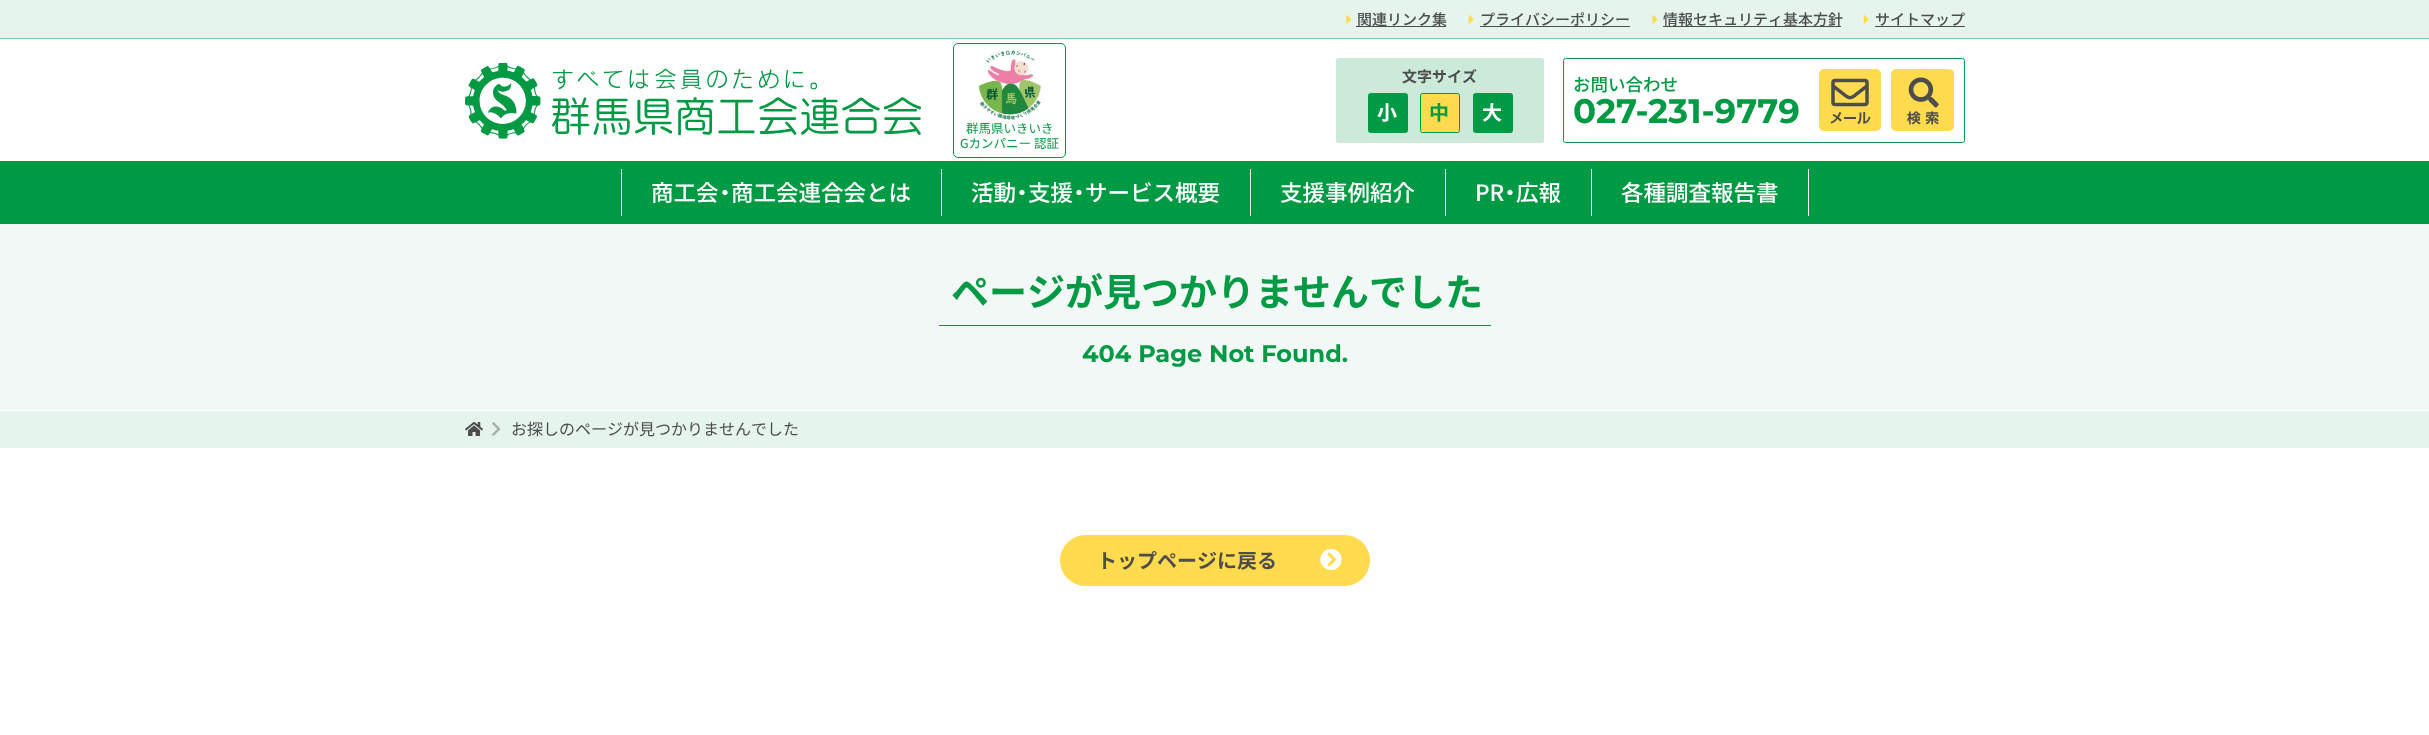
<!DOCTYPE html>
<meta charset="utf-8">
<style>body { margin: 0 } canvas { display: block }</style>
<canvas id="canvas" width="2429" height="735"></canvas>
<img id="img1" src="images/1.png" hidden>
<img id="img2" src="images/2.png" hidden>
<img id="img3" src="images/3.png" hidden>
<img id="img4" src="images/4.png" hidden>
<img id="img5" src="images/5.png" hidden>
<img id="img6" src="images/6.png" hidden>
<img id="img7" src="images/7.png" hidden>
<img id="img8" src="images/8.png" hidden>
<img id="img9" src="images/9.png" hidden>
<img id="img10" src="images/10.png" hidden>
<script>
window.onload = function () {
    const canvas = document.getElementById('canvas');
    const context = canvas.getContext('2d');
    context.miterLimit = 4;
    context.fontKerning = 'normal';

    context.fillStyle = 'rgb(255, 255, 255)';
    context.fillRect(0, 0, 2429, 735);
    context.fillStyle = 'rgb(229, 244, 236)';
    context.fillRect(0, 0, 2429, 38);
    context.fillStyle = 'rgb(127, 204, 161)';
    context.fillRect(0, 38, 2429, 1);
    context.drawImage(document.getElementById('img1'), 1346, 15, 6, 9);
    context.fillStyle = 'rgb(77, 77, 77)';
    context.fillRect(1356, 26, 90, 1);
    context.drawImage(document.getElementById('img2'), 1468, 15, 6, 9);
    context.fillRect(1480, 26, 150, 1);
    context.drawImage(document.getElementById('img3'), 1652, 15, 6, 9);
    context.fillRect(1663, 26, 178, 1);
    context.drawImage(document.getElementById('img2'), 1863, 15, 6, 9);
    context.fillRect(1875, 26, 90, 1);
    context.drawImage(document.getElementById('img4'), 465, 63, 456, 76);
    context.fillStyle = 'rgb(204, 234, 217)';
    context.beginPath();
    context.roundRect(1336, 58, 208, 85, 2.5);
    context.fill();
    context.fillStyle = 'rgb(0, 153, 68)';
    context.beginPath();
    context.roundRect(1368.5, 93.5, 39, 39, 2);
    context.fill();
    context.strokeStyle = 'rgb(0, 153, 68)';
    context.stroke();
    context.fillStyle = 'rgb(255, 219, 77)';
    context.beginPath();
    context.roundRect(1420.5, 93.5, 39, 39, 2);
    context.fill();
    context.stroke();
    context.fillStyle = 'rgb(0, 153, 68)';
    context.beginPath();
    context.roundRect(1473.5, 93.5, 39, 39, 2);
    context.fill();
    context.stroke();
    context.beginPath();
    context.roundRect(1563.5, 58.5, 401, 84, 2);
    context.stroke();
    context.fillStyle = 'rgb(255, 219, 77)';
    context.beginPath();
    context.roundRect(1819, 69, 62, 62, 5);
    context.fill();
    context.drawImage(document.getElementById('img5'), 1830, 78, 41, 47);
    context.beginPath();
    context.roundRect(1891, 69, 63, 62, 5);
    context.fill();
    context.drawImage(document.getElementById('img6'), 1907, 77, 32, 48);
    context.beginPath();
    context.roundRect(953.5, 43.5, 112, 114, 4.5);
    context.stroke();
    context.drawImage(document.getElementById('img7'), 978, 50, 64, 70);
    context.fillStyle = 'rgb(0, 153, 68)';
    context.fillRect(0, 161, 2429, 63);
    context.fillStyle = 'rgb(255, 255, 255)';
    context.fillRect(621, 169, 1, 47);
    context.fillRect(941, 169, 1, 47);
    context.fillRect(1250, 169, 1, 47);
    context.fillRect(1445, 169, 1, 47);
    context.fillRect(1591, 169, 1, 47);
    context.fillRect(1808, 169, 1, 47);
    context.fillStyle = 'rgb(241, 248, 245)';
    context.fillRect(0, 224, 2429, 186);
    context.fillStyle = 'rgb(0, 153, 68)';
    context.fillRect(939, 325, 552, 1);
    context.fillStyle = 'rgb(229, 244, 236)';
    context.fillRect(0, 411, 2429, 37);
    context.drawImage(document.getElementById('img8'), 465, 422, 18, 14);
    context.drawImage(document.getElementById('img9'), 492, 422, 9, 14);
    context.fillStyle = 'rgb(255, 219, 77)';
    context.beginPath();
    context.roundRect(1060, 535, 310, 51, 25.5);
    context.fill();
    context.drawImage(document.getElementById('img10'), 1320, 548, 22, 23);
    context.font = '500 15px Noto Sans JP';
    context.fillStyle = 'rgb(77, 77, 77)';
    context.fillText('関連リンク集', 1357, 25);
    context.fillText('プライバシーポリシー', 1480, 25);
    context.fillText('情報セキュリティ基本方針', 1663, 25);
    context.fillText('サイトマップ', 1875, 25);
    context.font = 'bold 15px Noto Sans JP';
    context.fillText('文字サイズ', 1402, 82);
    context.font = 'bold 20px Noto Sans JP';
    context.fillStyle = 'rgb(255, 255, 255)';
    context.fillText('小', 1377, 120);
    context.fillStyle = 'rgb(0, 153, 68)';
    context.fillText('中', 1429, 120);
    context.fillStyle = 'rgb(255, 255, 255)';
    context.fillText('大', 1482, 120);
    context.font = '500 17.5px Noto Sans JP';
    context.fillStyle = 'rgb(0, 153, 68)';
    context.fillText('お問い合わせ', 1573, 91);
    context.font = '100 34px Montserrat';
    context.fillText('027-231-9779', 1573, 123);
    context.font = '12.5px Noto Sans JP';
    context.fillText('群馬県いきいき', 966, 133);
    context.fillText('Gカンパニー 認証', 960, 148);
    context.font = '500 22.5px Noto Sans JP';
    context.fillStyle = 'rgb(255, 255, 255)';
    context.fillText('商工会', 651, 201);
    context.font = '500 22.5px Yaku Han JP';
    context.fillText('・', 719, 201);
    context.font = '500 22.5px Noto Sans JP';
    context.fillText('商工会連合会とは', 731, 201);
    context.fillText('活動', 971, 201);
    context.font = '500 22.5px Yaku Han JP';
    context.fillText('・', 1016, 201);
    context.font = '500 22.5px Noto Sans JP';
    context.fillText('支援', 1028, 201);
    context.font = '500 22.5px Yaku Han JP';
    context.fillText('・', 1073, 201);
    context.font = '500 22.5px Noto Sans JP';
    context.fillText('サービス概要', 1085, 201);
    context.fillText('支援事例紹介', 1280, 201);
    context.fillText('PR', 1475, 201);
    context.font = '500 22.5px Yaku Han JP';
    context.fillText('・', 1504, 201);
    context.font = '500 22.5px Noto Sans JP';
    context.fillText('広報', 1516, 201);
    context.fillText('各種調査報告書', 1621, 201);
    context.font = 'bold 38px Noto Sans JP';
    context.fillStyle = 'rgb(0, 153, 68)';
    context.fillText('ページが見つかりませんでした', 951, 306);
    context.font = '100 24px Montserrat';
    context.fillText('404 Page Not Found.', 1082, 362);
    context.font = '16px Noto Sans JP';
    context.fillStyle = 'rgb(77, 77, 77)';
    context.fillText('お探しのページが見つかりませんでした', 511, 435);
    context.font = 'bold 20px Noto Sans JP';
    context.fillText('トップページに戻る', 1097, 568);
};
</script>
